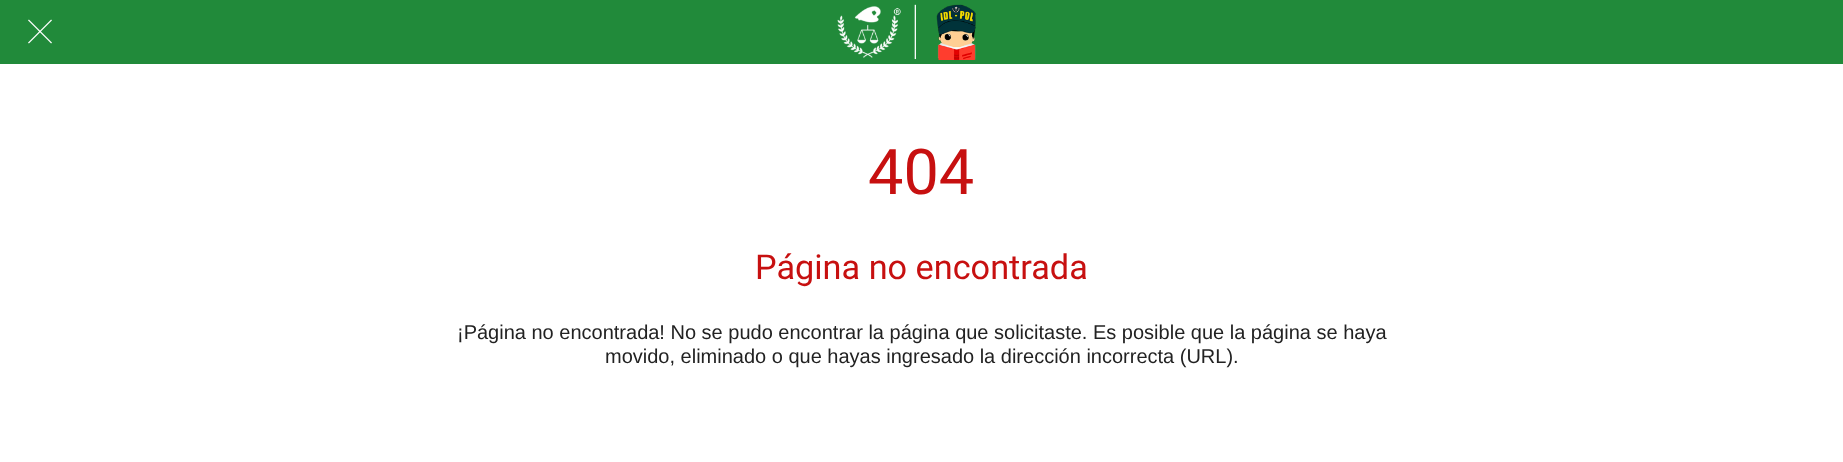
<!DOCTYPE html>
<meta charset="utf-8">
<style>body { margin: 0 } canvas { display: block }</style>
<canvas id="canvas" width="1843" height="462"></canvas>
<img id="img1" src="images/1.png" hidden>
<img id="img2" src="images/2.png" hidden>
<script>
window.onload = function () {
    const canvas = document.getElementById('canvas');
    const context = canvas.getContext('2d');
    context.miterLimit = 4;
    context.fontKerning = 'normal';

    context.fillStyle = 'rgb(255, 255, 255)';
    context.fillRect(0, 0, 1843, 462);
    context.fillStyle = 'rgb(33, 138, 58)';
    context.fillRect(0, 0, 1843, 64);
    context.drawImage(document.getElementById('img1'), 28, 19, 24, 25);
    context.drawImage(document.getElementById('img2'), 837, 4, 139, 56);
    context.font = '63px Roboto';
    context.fillStyle = 'rgb(199, 16, 16)';
    context.fillText('404', 868, 194);
    context.font = '34.25px Roboto';
    context.fillText('Página no encontrada', 755, 279);
    context.font = '20px Liberation Sans';
    context.fillStyle = 'rgb(34, 34, 34)';
    context.fillText('¡Página no encontrada! No se pudo encontrar la página que solicitaste. Es posible que la página se haya', 457, 339);
    context.fillText('movido, eliminado o que hayas ingresado la dirección incorrecta (URL).', 605, 363);
};
</script>
